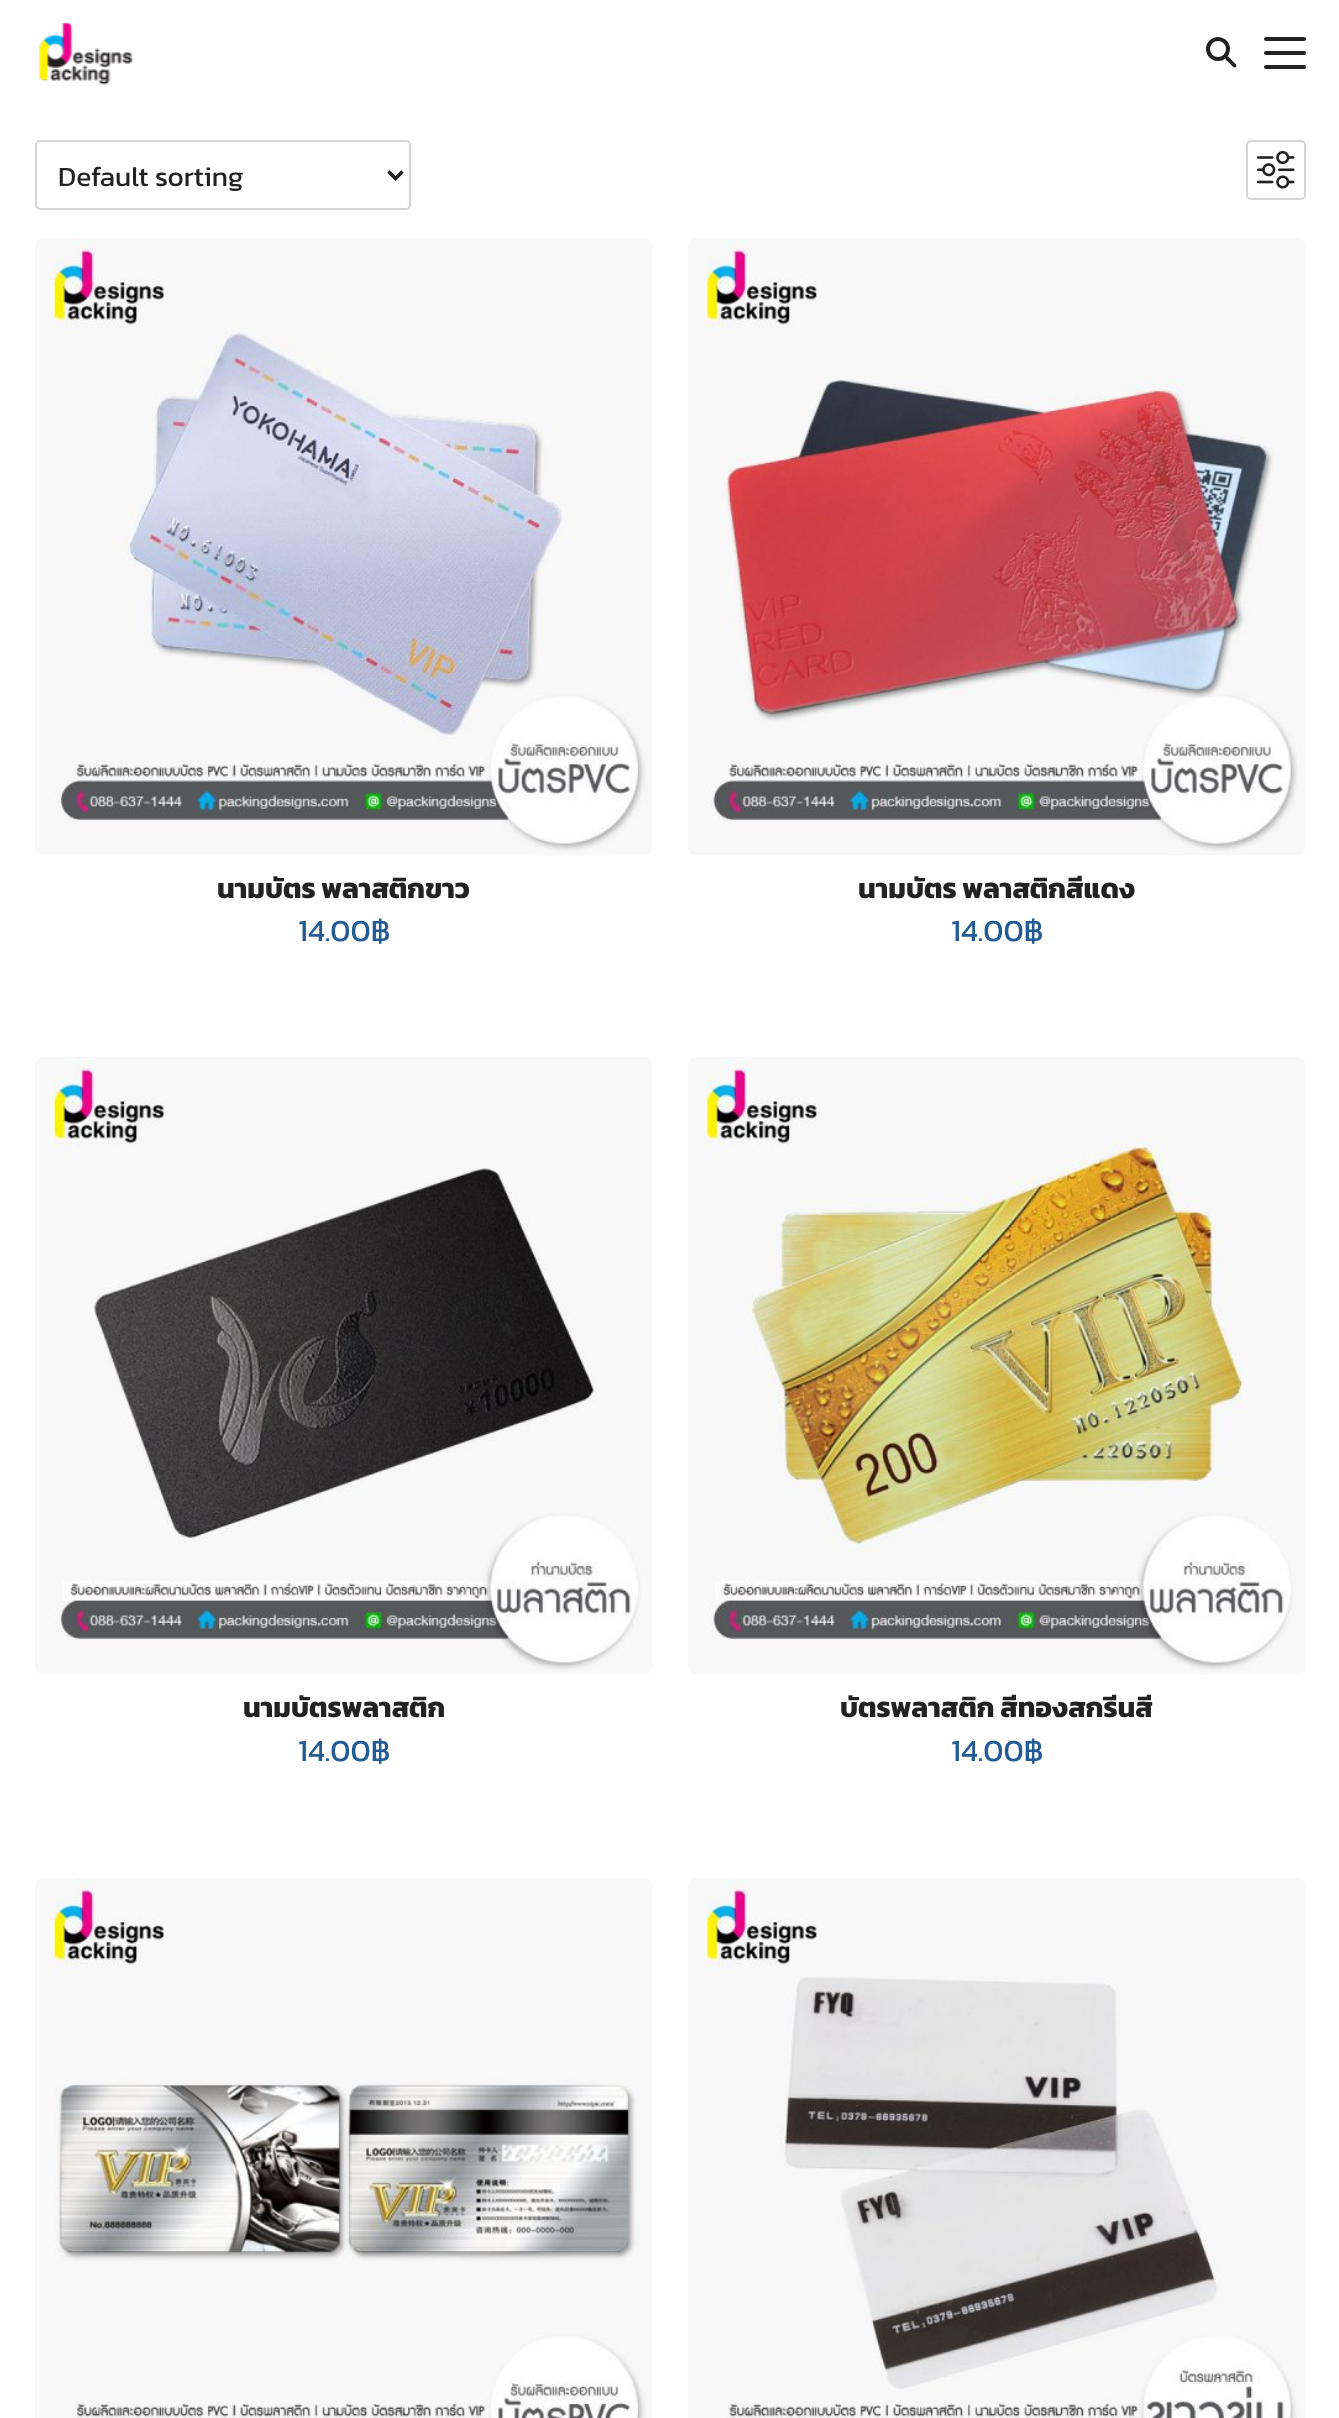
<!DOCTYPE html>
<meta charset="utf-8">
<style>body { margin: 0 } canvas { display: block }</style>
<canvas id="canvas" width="1339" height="2418"></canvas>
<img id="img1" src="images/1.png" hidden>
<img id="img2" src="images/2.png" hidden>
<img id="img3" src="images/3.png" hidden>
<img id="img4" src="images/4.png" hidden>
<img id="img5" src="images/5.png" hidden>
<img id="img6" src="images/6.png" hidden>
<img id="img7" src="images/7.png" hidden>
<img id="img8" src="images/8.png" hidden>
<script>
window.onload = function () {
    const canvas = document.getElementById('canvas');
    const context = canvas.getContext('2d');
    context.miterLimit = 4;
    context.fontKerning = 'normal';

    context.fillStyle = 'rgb(255, 255, 255)';
    context.fillRect(0, 0, 1339, 2418);
    context.drawImage(document.getElementById('img1'), 38, 22, 96, 63);
    context.fillStyle = 'rgb(34, 34, 34)';
    context.beginPath();
    context.moveTo(1225.5, 56.5);
    context.bezierCurveTo(1227.5, 54.5, 1231, 59.5, 1232, 60.5);
    context.bezierCurveTo(1233, 61.5, 1238, 65, 1236, 67);
    context.bezierCurveTo(1234, 69, 1230.5, 64, 1229.5, 63);
    context.bezierCurveTo(1228.5, 62, 1223.5, 58.5, 1225.5, 56.5);
    context.closePath();
    context.fill();
    context.beginPath();
    context.arc(1218, 49, 10, 0, 2 * Math.PI);
    context.strokeStyle = 'rgb(34, 34, 34)';
    context.lineWidth = 4;
    context.stroke();
    context.beginPath();
    context.roundRect(1264, 51, 42, 4, 2);
    context.fill();
    context.beginPath();
    context.roundRect(1264, 37, 42, 4, 2);
    context.fill();
    context.beginPath();
    context.roundRect(1264, 65, 42, 4, 2);
    context.fill();
    context.beginPath();
    context.roundRect(36, 141, 374, 68, 4);
    context.strokeStyle = 'rgb(213, 213, 215)';
    context.lineWidth = 2;
    context.stroke();
    context.beginPath();
    context.moveTo(388.5, 171.5);
    context.lineTo(395.5, 178.5);
    context.lineTo(402.5, 171.5);
    context.strokeStyle = 'rgb(34, 34, 34)';
    context.lineWidth = 3.5;
    context.stroke();
    context.beginPath();
    context.roundRect(1247, 141, 58, 58, 4);
    context.strokeStyle = 'rgb(213, 213, 215)';
    context.lineWidth = 2;
    context.stroke();
    context.drawImage(document.getElementById('img2'), 1257, 150, 38, 39);
    context.drawImage(document.getElementById('img3'), 35, 238, 618, 618);
    context.drawImage(document.getElementById('img4'), 688, 238, 617, 617);
    context.drawImage(document.getElementById('img5'), 35, 1057, 618, 618);
    context.drawImage(document.getElementById('img6'), 688, 1057, 617, 618);
    context.drawImage(document.getElementById('img7'), 35, 1878, 617, 540);
    context.drawImage(document.getElementById('img8'), 688, 1878, 617, 540);
    context.font = '28px Kanit';
    context.fillText('Default sorting', 58, 186);
    context.font = 'bold 28px Kanit';
    context.fillText('นามบัตร พลาสติกขาว', 217, 898);
    context.font = '31px Kanit';
    context.fillStyle = 'rgb(35, 91, 149)';
    context.fillText('14.00฿', 298, 941);
    context.font = 'bold 28px Kanit';
    context.fillStyle = 'rgb(34, 34, 34)';
    context.fillText('นามบัตร พลาสติกสีแดง', 858, 898);
    context.font = '31px Kanit';
    context.fillStyle = 'rgb(35, 91, 149)';
    context.fillText('14.00฿', 951, 941);
    context.font = 'bold 28px Kanit';
    context.fillStyle = 'rgb(34, 34, 34)';
    context.fillText('นามบัตรพลาสติก', 243, 1717);
    context.font = '31px Kanit';
    context.fillStyle = 'rgb(35, 91, 149)';
    context.fillText('14.00฿', 298, 1761);
    context.font = 'bold 28px Kanit';
    context.fillStyle = 'rgb(34, 34, 34)';
    context.fillText('บัตรพลาสติก สีทองสกรีนสี', 840, 1717);
    context.font = '31px Kanit';
    context.fillStyle = 'rgb(35, 91, 149)';
    context.fillText('14.00฿', 951, 1761);
};
</script>
